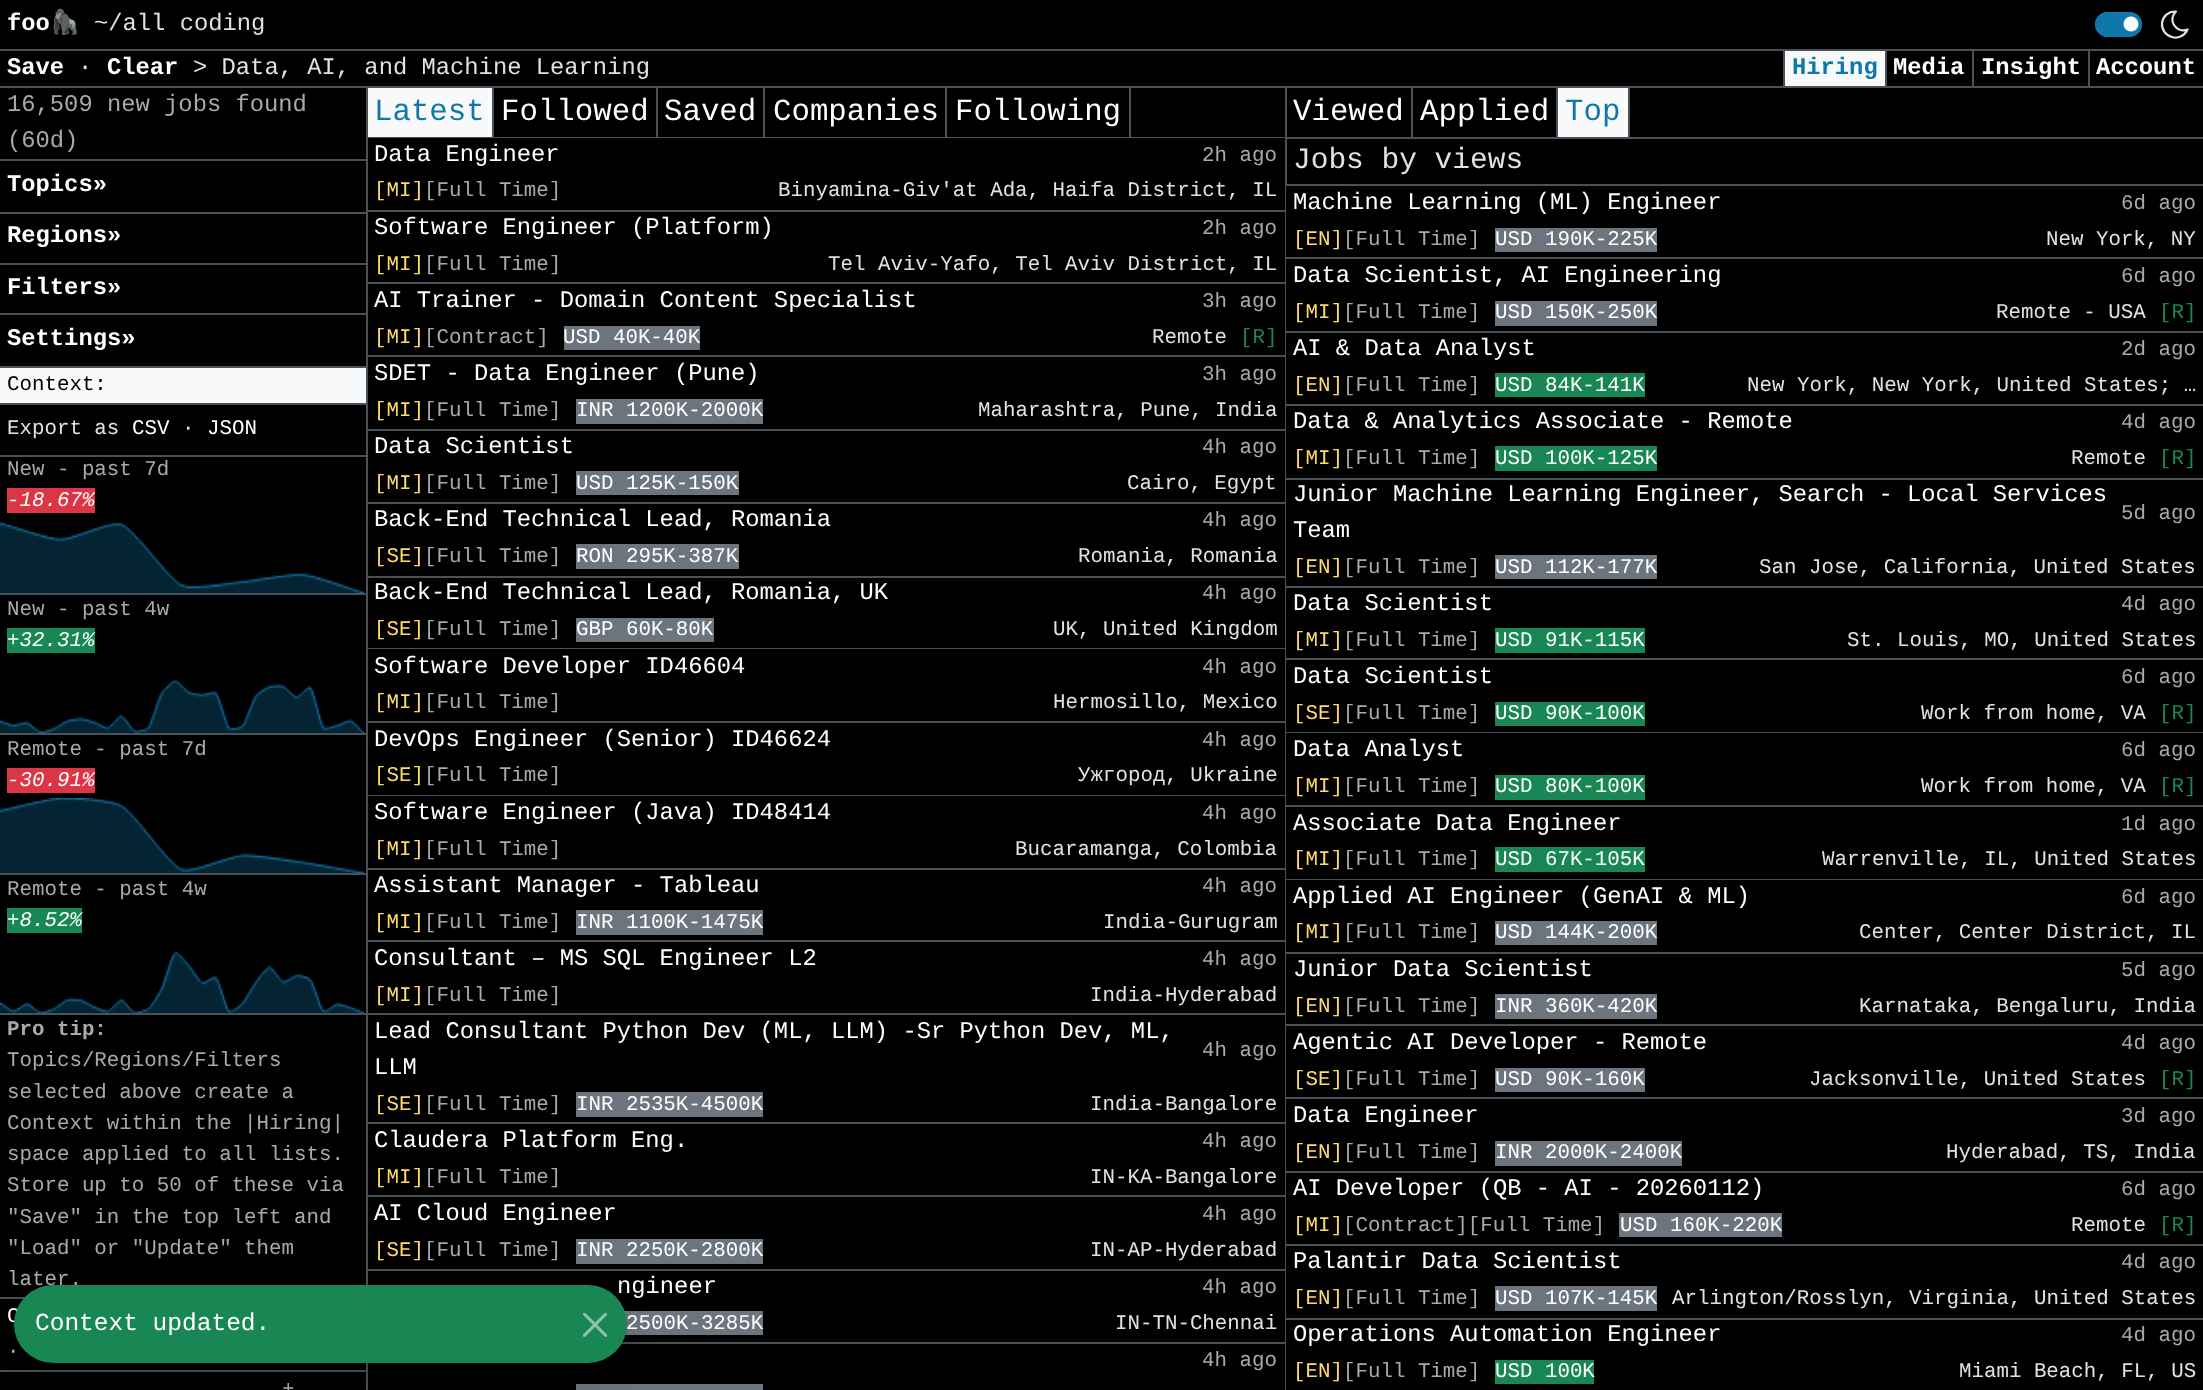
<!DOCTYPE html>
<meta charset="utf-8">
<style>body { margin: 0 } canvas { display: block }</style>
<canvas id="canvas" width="2203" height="1390"></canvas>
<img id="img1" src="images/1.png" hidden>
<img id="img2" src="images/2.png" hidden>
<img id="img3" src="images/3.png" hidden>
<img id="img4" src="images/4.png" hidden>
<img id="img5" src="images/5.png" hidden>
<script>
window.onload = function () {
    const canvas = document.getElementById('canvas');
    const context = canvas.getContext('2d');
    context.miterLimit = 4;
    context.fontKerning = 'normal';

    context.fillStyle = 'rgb(0, 0, 0)';
    context.fillRect(0, 0, 2203, 1390);
    context.fillStyle = 'rgb(73, 80, 87)';
    context.fillRect(0, 49, 2203, 2);
    context.fillStyle = 'rgb(16, 119, 170)';
    context.beginPath();
    context.roundRect(2095, 12, 47, 25, 12.5);
    context.fill();
    context.fillStyle = 'rgb(255, 255, 255)';
    context.beginPath();
    context.arc(2131, 24, 7.5, 0, 2 * Math.PI);
    context.fill();
    context.beginPath();
    context.roundRect(2096, 13, 45, 23, 11.5);
    context.strokeStyle = 'rgb(16, 119, 170)';
    context.lineWidth = 2;
    context.stroke();
    context.beginPath();
    context.moveTo(2175, 11.5);
    context.lineTo(2176, 11.5);
    context.bezierCurveTo(2167, 19.5, 2176, 34, 2187.5, 29.5);
    context.bezierCurveTo(2185, 35.5, 2178, 39, 2172, 37);
    context.bezierCurveTo(2165.5, 35.5, 2161.5, 29.5, 2162, 23);
    context.bezierCurveTo(2163, 16, 2168.5, 11.5, 2175, 11.5);
    context.closePath();
    context.strokeStyle = 'rgb(222, 226, 230)';
    context.lineWidth = 2.2;
    context.lineCap = 'round';
    context.lineJoin = 'round';
    context.stroke();
    context.fillStyle = 'rgb(73, 80, 87)';
    context.fillRect(0, 86, 2203, 2);
    context.fillStyle = 'rgb(248, 249, 250)';
    context.fillRect(1785, 51, 100, 35);
    context.fillStyle = 'rgb(73, 80, 87)';
    context.fillRect(1783, 51, 2, 35);
    context.fillRect(1885, 51, 2, 35);
    context.fillRect(1972, 51, 2, 35);
    context.fillRect(2088, 51, 2, 35);
    context.fillRect(366, 88, 2, 1302);
    context.fillRect(0, 159, 366, 2);
    context.fillRect(0, 212, 366, 2);
    context.fillRect(0, 263, 366, 2);
    context.fillRect(0, 313, 366, 2);
    context.fillRect(0, 366, 366, 2);
    context.fillStyle = 'rgb(248, 249, 250)';
    context.fillRect(0, 368, 366, 35);
    context.fillStyle = 'rgb(73, 80, 87)';
    context.fillRect(0, 403, 366, 2);
    context.fillRect(0, 455, 366, 2);
    context.fillStyle = 'rgb(220, 53, 69)';
    context.fillRect(7, 488, 88, 25);
    context.fillStyle = 'rgb(73, 80, 87)';
    context.fillRect(0, 593, 366, 2);
    context.drawImage(document.getElementById('img1'), 0, 521, 364, 72);
    context.fillStyle = 'rgb(25, 135, 84)';
    context.fillRect(7, 628, 88, 25);
    context.fillStyle = 'rgb(73, 80, 87)';
    context.fillRect(0, 733, 366, 2);
    context.drawImage(document.getElementById('img2'), 0, 679, 364, 54);
    context.fillStyle = 'rgb(220, 53, 69)';
    context.fillRect(7, 768, 88, 25);
    context.fillStyle = 'rgb(73, 80, 87)';
    context.fillRect(0, 873, 366, 2);
    context.drawImage(document.getElementById('img3'), 0, 798, 364, 75);
    context.fillStyle = 'rgb(25, 135, 84)';
    context.fillRect(7, 908, 75, 25);
    context.fillStyle = 'rgb(73, 80, 87)';
    context.fillRect(0, 1013, 366, 2);
    context.drawImage(document.getElementById('img4'), 0, 951, 364, 62);
    context.fillRect(0, 1297, 25, 2);
    context.fillRect(0, 1370, 366, 2);
    context.fillRect(1285, 88, 2, 1302);
    context.fillRect(368, 137, 917, 1);
    context.fillStyle = 'rgb(248, 249, 250)';
    context.fillRect(368, 88, 124, 49);
    context.fillStyle = 'rgb(73, 80, 87)';
    context.fillRect(492, 88, 2, 49);
    context.fillRect(656, 88, 2, 49);
    context.fillRect(763, 88, 2, 49);
    context.fillRect(945, 88, 2, 49);
    context.fillRect(1129, 88, 2, 49);
    context.fillRect(368, 210, 917, 2);
    context.fillRect(368, 282, 917, 2);
    context.fillRect(368, 355, 917, 2);
    context.fillStyle = 'rgb(108, 117, 125)';
    context.fillRect(564, 326, 136, 24);
    context.fillStyle = 'rgb(73, 80, 87)';
    context.fillRect(368, 429, 917, 2);
    context.fillStyle = 'rgb(108, 117, 125)';
    context.fillRect(576, 399, 187, 25);
    context.fillStyle = 'rgb(73, 80, 87)';
    context.fillRect(368, 502, 917, 2);
    context.fillStyle = 'rgb(108, 117, 125)';
    context.fillRect(576, 471, 163, 24);
    context.fillStyle = 'rgb(73, 80, 87)';
    context.fillRect(368, 576, 917, 2);
    context.fillStyle = 'rgb(108, 117, 125)';
    context.fillRect(576, 544, 163, 25);
    context.fillStyle = 'rgb(73, 80, 87)';
    context.fillRect(368, 648, 917, 1);
    context.fillStyle = 'rgb(108, 117, 125)';
    context.fillRect(576, 618, 138, 24);
    context.fillStyle = 'rgb(73, 80, 87)';
    context.fillRect(368, 721, 917, 2);
    context.fillRect(368, 795, 917, 1);
    context.fillRect(368, 868, 917, 2);
    context.fillRect(368, 940, 917, 2);
    context.fillStyle = 'rgb(108, 117, 125)';
    context.fillRect(576, 910, 187, 25);
    context.fillStyle = 'rgb(73, 80, 87)';
    context.fillRect(368, 1013, 917, 2);
    context.fillRect(368, 1122, 917, 2);
    context.fillStyle = 'rgb(108, 117, 125)';
    context.fillRect(576, 1092, 187, 25);
    context.fillStyle = 'rgb(73, 80, 87)';
    context.fillRect(368, 1195, 917, 2);
    context.fillRect(368, 1269, 917, 2);
    context.fillStyle = 'rgb(108, 117, 125)';
    context.fillRect(576, 1239, 187, 25);
    context.fillStyle = 'rgb(73, 80, 87)';
    context.fillRect(621, 1342, 664, 2);
    context.fillStyle = 'rgb(108, 117, 125)';
    context.fillRect(624, 1311, 139, 24);
    context.fillRect(576, 1384, 187, 6);
    context.fillStyle = 'rgb(73, 80, 87)';
    context.fillRect(1286, 137, 917, 2);
    context.fillRect(1411, 88, 2, 49);
    context.fillRect(1556, 88, 2, 49);
    context.fillStyle = 'rgb(248, 249, 250)';
    context.fillRect(1558, 88, 70, 49);
    context.fillStyle = 'rgb(73, 80, 87)';
    context.fillRect(1628, 88, 2, 49);
    context.fillRect(1286, 184, 917, 2);
    context.fillStyle = 'rgb(0, 0, 0)';
    context.fillRect(1286, 186, 1, 71);
    context.fillStyle = 'rgb(73, 80, 87)';
    context.fillRect(1286, 257, 917, 2);
    context.fillStyle = 'rgb(108, 117, 125)';
    context.fillRect(1495, 228, 162, 24);
    context.fillStyle = 'rgb(0, 0, 0)';
    context.fillRect(1286, 259, 1, 72);
    context.fillStyle = 'rgb(73, 80, 87)';
    context.fillRect(1286, 331, 917, 2);
    context.fillStyle = 'rgb(108, 117, 125)';
    context.fillRect(1495, 301, 162, 25);
    context.fillStyle = 'rgb(0, 0, 0)';
    context.fillRect(1286, 333, 1, 71);
    context.fillStyle = 'rgb(73, 80, 87)';
    context.fillRect(1286, 404, 917, 2);
    context.fillStyle = 'rgb(25, 135, 84)';
    context.fillRect(1495, 373, 150, 24);
    context.fillStyle = 'rgb(0, 0, 0)';
    context.fillRect(1286, 406, 1, 72);
    context.fillStyle = 'rgb(73, 80, 87)';
    context.fillRect(1286, 478, 917, 2);
    context.fillStyle = 'rgb(25, 135, 84)';
    context.fillRect(1495, 446, 162, 25);
    context.fillStyle = 'rgb(0, 0, 0)';
    context.fillRect(1286, 480, 1, 106);
    context.fillStyle = 'rgb(73, 80, 87)';
    context.fillRect(1286, 586, 917, 2);
    context.fillStyle = 'rgb(108, 117, 125)';
    context.fillRect(1495, 555, 162, 24);
    context.fillStyle = 'rgb(0, 0, 0)';
    context.fillRect(1286, 588, 1, 70);
    context.fillStyle = 'rgb(73, 80, 87)';
    context.fillRect(1286, 658, 917, 2);
    context.fillStyle = 'rgb(25, 135, 84)';
    context.fillRect(1495, 628, 150, 25);
    context.fillStyle = 'rgb(0, 0, 0)';
    context.fillRect(1286, 660, 1, 72);
    context.fillStyle = 'rgb(73, 80, 87)';
    context.fillRect(1286, 732, 917, 1);
    context.fillStyle = 'rgb(25, 135, 84)';
    context.fillRect(1495, 702, 150, 24);
    context.fillStyle = 'rgb(0, 0, 0)';
    context.fillRect(1286, 733, 1, 72);
    context.fillStyle = 'rgb(73, 80, 87)';
    context.fillRect(1286, 805, 917, 2);
    context.fillStyle = 'rgb(25, 135, 84)';
    context.fillRect(1495, 775, 150, 25);
    context.fillStyle = 'rgb(0, 0, 0)';
    context.fillRect(1286, 807, 1, 72);
    context.fillStyle = 'rgb(73, 80, 87)';
    context.fillRect(1286, 879, 917, 1);
    context.fillStyle = 'rgb(25, 135, 84)';
    context.fillRect(1495, 847, 150, 25);
    context.fillStyle = 'rgb(0, 0, 0)';
    context.fillRect(1286, 880, 1, 72);
    context.fillStyle = 'rgb(73, 80, 87)';
    context.fillRect(1286, 952, 917, 2);
    context.fillStyle = 'rgb(108, 117, 125)';
    context.fillRect(1495, 921, 162, 24);
    context.fillStyle = 'rgb(0, 0, 0)';
    context.fillRect(1286, 954, 1, 70);
    context.fillStyle = 'rgb(73, 80, 87)';
    context.fillRect(1286, 1024, 917, 2);
    context.fillStyle = 'rgb(108, 117, 125)';
    context.fillRect(1495, 994, 162, 25);
    context.fillStyle = 'rgb(0, 0, 0)';
    context.fillRect(1286, 1026, 1, 71);
    context.fillStyle = 'rgb(73, 80, 87)';
    context.fillRect(1286, 1097, 917, 2);
    context.fillStyle = 'rgb(108, 117, 125)';
    context.fillRect(1495, 1068, 150, 24);
    context.fillStyle = 'rgb(0, 0, 0)';
    context.fillRect(1286, 1099, 1, 72);
    context.fillStyle = 'rgb(73, 80, 87)';
    context.fillRect(1286, 1171, 917, 2);
    context.fillStyle = 'rgb(108, 117, 125)';
    context.fillRect(1495, 1141, 187, 25);
    context.fillStyle = 'rgb(0, 0, 0)';
    context.fillRect(1286, 1173, 1, 71);
    context.fillStyle = 'rgb(73, 80, 87)';
    context.fillRect(1286, 1244, 917, 2);
    context.fillStyle = 'rgb(108, 117, 125)';
    context.fillRect(1619, 1213, 163, 24);
    context.fillStyle = 'rgb(0, 0, 0)';
    context.fillRect(1286, 1246, 1, 72);
    context.fillStyle = 'rgb(73, 80, 87)';
    context.fillRect(1286, 1318, 917, 2);
    context.fillStyle = 'rgb(108, 117, 125)';
    context.fillRect(1495, 1286, 162, 25);
    context.fillStyle = 'rgb(0, 0, 0)';
    context.fillRect(1286, 1320, 1, 70);
    context.fillStyle = 'rgb(25, 135, 84)';
    context.fillRect(1495, 1360, 99, 24);
    context.fillStyle = 'rgba(0, 0, 0, 0.15)';
    context.filter = 'blur(14px)';
    context.beginPath();
    context.roundRect(14, 1299, 613, 78, 39);
    context.fill();
    context.filter = 'none';
    context.font = 'bold 23.8px Liberation Mono';
    context.fillStyle = 'rgb(255, 255, 255)';
    context.fillText('foo', 7, 30);
    context.font = 'bold 23.8px Noto Color Emoji';
    context.fillText('🦍', 50, 30);
    context.font = '23.8px Liberation Mono';
    context.fillStyle = 'rgb(222, 226, 230)';
    context.fillText('~/all coding', 94, 30);
    context.font = 'bold 23.8px Liberation Mono';
    context.fillStyle = 'rgb(255, 255, 255)';
    context.fillText('Save', 7, 74);
    context.font = '23.8px Liberation Mono';
    context.fillStyle = 'rgb(222, 226, 230)';
    context.fillText('·', 78, 74);
    context.font = 'bold 23.8px Liberation Mono';
    context.fillStyle = 'rgb(255, 255, 255)';
    context.fillText('Clear', 107, 74);
    context.font = '23.8px Liberation Mono';
    context.fillStyle = 'rgb(222, 226, 230)';
    context.fillText('> Data, AI, and Machine Learning', 193, 74);
    context.font = 'bold 23.8px Liberation Mono';
    context.fillStyle = 'rgb(16, 119, 170)';
    context.fillText('Hiring', 1792, 74);
    context.fillStyle = 'rgb(255, 255, 255)';
    context.fillText('Media', 1893, 74);
    context.fillText('Insight', 1981, 74);
    context.fillText('Account', 2096, 74);
    context.font = '23.8px Liberation Mono';
    context.fillStyle = 'rgb(167, 170, 173)';
    context.fillText('16,509 new jobs found', 7, 111);
    context.fillText('(60d)', 7, 147);
    context.font = 'bold 23.8px Liberation Mono';
    context.fillStyle = 'rgb(255, 255, 255)';
    context.fillText('Topics»', 7, 191);
    context.fillText('Regions»', 7, 242);
    context.fillText('Filters»', 7, 294);
    context.fillText('Settings»', 7, 345);
    context.font = '20.8px Liberation Mono';
    context.fillStyle = 'rgb(0, 0, 0)';
    context.fillText('Context:', 7, 390);
    context.fillStyle = 'rgb(222, 226, 230)';
    context.fillText('Export as', 7, 434);
    context.fillStyle = 'rgb(255, 255, 255)';
    context.fillText('CSV', 132, 434);
    context.fillStyle = 'rgb(222, 226, 230)';
    context.fillText('·', 182, 434);
    context.fillStyle = 'rgb(255, 255, 255)';
    context.fillText('JSON', 207, 434);
    context.fillStyle = 'rgb(167, 170, 173)';
    context.fillText('New - past 7d', 7, 475);
    context.font = 'italic 20.8px Liberation Mono';
    context.fillStyle = 'rgb(255, 255, 255)';
    context.fillText('-18.67%', 7, 506);
    context.font = '20.8px Liberation Mono';
    context.fillStyle = 'rgb(167, 170, 173)';
    context.fillText('New - past 4w', 7, 615);
    context.font = 'italic 20.8px Liberation Mono';
    context.fillStyle = 'rgb(255, 255, 255)';
    context.fillText('+32.31%', 7, 646);
    context.font = '20.8px Liberation Mono';
    context.fillStyle = 'rgb(167, 170, 173)';
    context.fillText('Remote - past 7d', 7, 755);
    context.font = 'italic 20.8px Liberation Mono';
    context.fillStyle = 'rgb(255, 255, 255)';
    context.fillText('-30.91%', 7, 786);
    context.font = '20.8px Liberation Mono';
    context.fillStyle = 'rgb(167, 170, 173)';
    context.fillText('Remote - past 4w', 7, 895);
    context.font = 'italic 20.8px Liberation Mono';
    context.fillStyle = 'rgb(255, 255, 255)';
    context.fillText('+8.52%', 7, 926);
    context.font = 'bold 20.8px Liberation Mono';
    context.fillStyle = 'rgb(167, 170, 173)';
    context.fillText('Pro tip:', 7, 1035);
    context.font = '20.8px Liberation Mono';
    context.fillText('Topics/Regions/Filters', 7, 1066);
    context.fillText('selected above create a', 7, 1098);
    context.fillText('Context within the |Hiring|', 7, 1129);
    context.fillText('space applied to all lists.', 7, 1160);
    context.fillText('Store up to 50 of these via', 7, 1191);
    context.fillText('"Save" in the top left and', 7, 1223);
    context.fillText('"Load" or "Update" them', 7, 1254);
    context.fillText('later.', 7, 1285);
    context.fillStyle = 'rgb(255, 255, 255)';
    context.fillText('C', 7, 1322);
    context.fillStyle = 'rgb(167, 170, 173)';
    context.fillText('·', 7, 1357);
    context.fillText('+', 282, 1395);
    context.font = '30.75px Liberation Mono';
    context.fillStyle = 'rgb(16, 119, 170)';
    context.fillText('Latest', 374, 120);
    context.fillStyle = 'rgb(255, 255, 255)';
    context.fillText('Followed', 501, 120);
    context.fillText('Saved', 664, 120);
    context.fillText('Companies', 773, 120);
    context.fillText('Following', 955, 120);
    context.font = '23.8px Liberation Mono';
    context.fillText('Data Engineer', 374, 161);
    context.font = '20.8px Liberation Mono';
    context.fillStyle = 'rgb(167, 170, 173)';
    context.fillText('2h ago', 1202, 161);
    context.fillStyle = 'rgb(255, 218, 106)';
    context.fillText('[MI]', 374, 196);
    context.fillStyle = 'rgb(167, 170, 173)';
    context.fillText('[Full Time]', 424, 196);
    context.fillStyle = 'rgb(222, 226, 230)';
    context.fillText('Binyamina-Giv\'at Ada, Haifa District, IL', 778, 196);
    context.font = '23.8px Liberation Mono';
    context.fillStyle = 'rgb(255, 255, 255)';
    context.fillText('Software Engineer (Platform)', 374, 234);
    context.font = '20.8px Liberation Mono';
    context.fillStyle = 'rgb(167, 170, 173)';
    context.fillText('2h ago', 1202, 234);
    context.fillStyle = 'rgb(255, 218, 106)';
    context.fillText('[MI]', 374, 270);
    context.fillStyle = 'rgb(167, 170, 173)';
    context.fillText('[Full Time]', 424, 270);
    context.fillStyle = 'rgb(222, 226, 230)';
    context.fillText('Tel Aviv-Yafo, Tel Aviv District, IL', 828, 270);
    context.font = '23.8px Liberation Mono';
    context.fillStyle = 'rgb(255, 255, 255)';
    context.fillText('AI Trainer - Domain Content Specialist', 374, 307);
    context.font = '20.8px Liberation Mono';
    context.fillStyle = 'rgb(167, 170, 173)';
    context.fillText('3h ago', 1202, 307);
    context.fillStyle = 'rgb(255, 218, 106)';
    context.fillText('[MI]', 374, 343);
    context.fillStyle = 'rgb(167, 170, 173)';
    context.fillText('[Contract]', 424, 343);
    context.fillStyle = 'rgb(255, 255, 255)';
    context.fillText('USD 40K-40K', 563, 343);
    context.fillStyle = 'rgb(222, 226, 230)';
    context.fillText('Remote', 1152, 343);
    context.fillStyle = 'rgb(25, 135, 84)';
    context.fillText('[R]', 1240, 343);
    context.font = '23.8px Liberation Mono';
    context.fillStyle = 'rgb(255, 255, 255)';
    context.fillText('SDET - Data Engineer (Pune)', 374, 380);
    context.font = '20.8px Liberation Mono';
    context.fillStyle = 'rgb(167, 170, 173)';
    context.fillText('3h ago', 1202, 380);
    context.fillStyle = 'rgb(255, 218, 106)';
    context.fillText('[MI]', 374, 416);
    context.fillStyle = 'rgb(167, 170, 173)';
    context.fillText('[Full Time]', 424, 416);
    context.fillStyle = 'rgb(255, 255, 255)';
    context.fillText('INR 1200K-2000K', 576, 416);
    context.fillStyle = 'rgb(222, 226, 230)';
    context.fillText('Maharashtra, Pune, India', 978, 416);
    context.font = '23.8px Liberation Mono';
    context.fillStyle = 'rgb(255, 255, 255)';
    context.fillText('Data Scientist', 374, 453);
    context.font = '20.8px Liberation Mono';
    context.fillStyle = 'rgb(167, 170, 173)';
    context.fillText('4h ago', 1202, 453);
    context.fillStyle = 'rgb(255, 218, 106)';
    context.fillText('[MI]', 374, 489);
    context.fillStyle = 'rgb(167, 170, 173)';
    context.fillText('[Full Time]', 424, 489);
    context.fillStyle = 'rgb(255, 255, 255)';
    context.fillText('USD 125K-150K', 576, 489);
    context.fillStyle = 'rgb(222, 226, 230)';
    context.fillText('Cairo, Egypt', 1127, 489);
    context.font = '23.8px Liberation Mono';
    context.fillStyle = 'rgb(255, 255, 255)';
    context.fillText('Back-End Technical Lead, Romania', 374, 526);
    context.font = '20.8px Liberation Mono';
    context.fillStyle = 'rgb(167, 170, 173)';
    context.fillText('4h ago', 1202, 526);
    context.fillStyle = 'rgb(255, 218, 106)';
    context.fillText('[SE]', 374, 562);
    context.fillStyle = 'rgb(167, 170, 173)';
    context.fillText('[Full Time]', 424, 562);
    context.fillStyle = 'rgb(255, 255, 255)';
    context.fillText('RON 295K-387K', 576, 562);
    context.fillStyle = 'rgb(222, 226, 230)';
    context.fillText('Romania, Romania', 1078, 562);
    context.font = '23.8px Liberation Mono';
    context.fillStyle = 'rgb(255, 255, 255)';
    context.fillText('Back-End Technical Lead, Romania, UK', 374, 599);
    context.font = '20.8px Liberation Mono';
    context.fillStyle = 'rgb(167, 170, 173)';
    context.fillText('4h ago', 1202, 599);
    context.fillStyle = 'rgb(255, 218, 106)';
    context.fillText('[SE]', 374, 635);
    context.fillStyle = 'rgb(167, 170, 173)';
    context.fillText('[Full Time]', 424, 635);
    context.fillStyle = 'rgb(255, 255, 255)';
    context.fillText('GBP 60K-80K', 576, 635);
    context.fillStyle = 'rgb(222, 226, 230)';
    context.fillText('UK, United Kingdom', 1053, 635);
    context.font = '23.8px Liberation Mono';
    context.fillStyle = 'rgb(255, 255, 255)';
    context.fillText('Software Developer ID46604', 374, 673);
    context.font = '20.8px Liberation Mono';
    context.fillStyle = 'rgb(167, 170, 173)';
    context.fillText('4h ago', 1202, 673);
    context.fillStyle = 'rgb(255, 218, 106)';
    context.fillText('[MI]', 374, 708);
    context.fillStyle = 'rgb(167, 170, 173)';
    context.fillText('[Full Time]', 424, 708);
    context.fillStyle = 'rgb(222, 226, 230)';
    context.fillText('Hermosillo, Mexico', 1053, 708);
    context.font = '23.8px Liberation Mono';
    context.fillStyle = 'rgb(255, 255, 255)';
    context.fillText('DevOps Engineer (Senior) ID46624', 374, 746);
    context.font = '20.8px Liberation Mono';
    context.fillStyle = 'rgb(167, 170, 173)';
    context.fillText('4h ago', 1202, 746);
    context.fillStyle = 'rgb(255, 218, 106)';
    context.fillText('[SE]', 374, 781);
    context.fillStyle = 'rgb(167, 170, 173)';
    context.fillText('[Full Time]', 424, 781);
    context.fillStyle = 'rgb(222, 226, 230)';
    context.fillText('Ужгород, Ukraine', 1078, 781);
    context.font = '23.8px Liberation Mono';
    context.fillStyle = 'rgb(255, 255, 255)';
    context.fillText('Software Engineer (Java) ID48414', 374, 819);
    context.font = '20.8px Liberation Mono';
    context.fillStyle = 'rgb(167, 170, 173)';
    context.fillText('4h ago', 1202, 819);
    context.fillStyle = 'rgb(255, 218, 106)';
    context.fillText('[MI]', 374, 855);
    context.fillStyle = 'rgb(167, 170, 173)';
    context.fillText('[Full Time]', 424, 855);
    context.fillStyle = 'rgb(222, 226, 230)';
    context.fillText('Bucaramanga, Colombia', 1015, 855);
    context.font = '23.8px Liberation Mono';
    context.fillStyle = 'rgb(255, 255, 255)';
    context.fillText('Assistant Manager - Tableau', 374, 892);
    context.font = '20.8px Liberation Mono';
    context.fillStyle = 'rgb(167, 170, 173)';
    context.fillText('4h ago', 1202, 892);
    context.fillStyle = 'rgb(255, 218, 106)';
    context.fillText('[MI]', 374, 928);
    context.fillStyle = 'rgb(167, 170, 173)';
    context.fillText('[Full Time]', 424, 928);
    context.fillStyle = 'rgb(255, 255, 255)';
    context.fillText('INR 1100K-1475K', 576, 928);
    context.fillStyle = 'rgb(222, 226, 230)';
    context.fillText('India-Gurugram', 1103, 928);
    context.font = '23.8px Liberation Mono';
    context.fillStyle = 'rgb(255, 255, 255)';
    context.fillText('Consultant – MS SQL Engineer L2', 374, 965);
    context.font = '20.8px Liberation Mono';
    context.fillStyle = 'rgb(167, 170, 173)';
    context.fillText('4h ago', 1202, 965);
    context.fillStyle = 'rgb(255, 218, 106)';
    context.fillText('[MI]', 374, 1001);
    context.fillStyle = 'rgb(167, 170, 173)';
    context.fillText('[Full Time]', 424, 1001);
    context.fillStyle = 'rgb(222, 226, 230)';
    context.fillText('India-Hyderabad', 1090, 1001);
    context.font = '23.8px Liberation Mono';
    context.fillStyle = 'rgb(255, 255, 255)';
    context.fillText('Lead Consultant Python Dev (ML, LLM) -Sr Python Dev, ML,', 374, 1038);
    context.fillText('LLM', 374, 1074);
    context.font = '20.8px Liberation Mono';
    context.fillStyle = 'rgb(167, 170, 173)';
    context.fillText('4h ago', 1202, 1056);
    context.fillStyle = 'rgb(255, 218, 106)';
    context.fillText('[SE]', 374, 1110);
    context.fillStyle = 'rgb(167, 170, 173)';
    context.fillText('[Full Time]', 424, 1110);
    context.fillStyle = 'rgb(255, 255, 255)';
    context.fillText('INR 2535K-4500K', 576, 1110);
    context.fillStyle = 'rgb(222, 226, 230)';
    context.fillText('India-Bangalore', 1090, 1110);
    context.font = '23.8px Liberation Mono';
    context.fillStyle = 'rgb(255, 255, 255)';
    context.fillText('Claudera Platform Eng.', 374, 1147);
    context.font = '20.8px Liberation Mono';
    context.fillStyle = 'rgb(167, 170, 173)';
    context.fillText('4h ago', 1202, 1147);
    context.fillStyle = 'rgb(255, 218, 106)';
    context.fillText('[MI]', 374, 1183);
    context.fillStyle = 'rgb(167, 170, 173)';
    context.fillText('[Full Time]', 424, 1183);
    context.fillStyle = 'rgb(222, 226, 230)';
    context.fillText('IN-KA-Bangalore', 1090, 1183);
    context.font = '23.8px Liberation Mono';
    context.fillStyle = 'rgb(255, 255, 255)';
    context.fillText('AI Cloud Engineer', 374, 1220);
    context.font = '20.8px Liberation Mono';
    context.fillStyle = 'rgb(167, 170, 173)';
    context.fillText('4h ago', 1202, 1220);
    context.fillStyle = 'rgb(255, 218, 106)';
    context.fillText('[SE]', 374, 1256);
    context.fillStyle = 'rgb(167, 170, 173)';
    context.fillText('[Full Time]', 424, 1256);
    context.fillStyle = 'rgb(255, 255, 255)';
    context.fillText('INR 2250K-2800K', 576, 1256);
    context.fillStyle = 'rgb(222, 226, 230)';
    context.fillText('IN-AP-Hyderabad', 1090, 1256);
    context.font = '23.8px Liberation Mono';
    context.fillStyle = 'rgb(255, 255, 255)';
    context.fillText('ngineer', 617, 1293);
    context.font = '20.8px Liberation Mono';
    context.fillStyle = 'rgb(167, 170, 173)';
    context.fillText('4h ago', 1202, 1293);
    context.fillStyle = 'rgb(255, 255, 255)';
    context.fillText('2500K-3285K', 626, 1329);
    context.fillStyle = 'rgb(222, 226, 230)';
    context.fillText('IN-TN-Chennai', 1115, 1329);
    context.fillStyle = 'rgb(167, 170, 173)';
    context.fillText('4h ago', 1202, 1366);
    context.font = '30.75px Liberation Mono';
    context.fillStyle = 'rgb(255, 255, 255)';
    context.fillText('Viewed', 1293, 120);
    context.fillText('Applied', 1420, 120);
    context.fillStyle = 'rgb(16, 119, 170)';
    context.fillText('Top', 1565, 120);
    context.font = '29.5px Liberation Mono';
    context.fillStyle = 'rgb(222, 226, 230)';
    context.fillText('Jobs by views', 1293, 168);
    context.font = '23.8px Liberation Mono';
    context.fillStyle = 'rgb(255, 255, 255)';
    context.fillText('Machine Learning (ML) Engineer', 1293, 209);
    context.font = '20.8px Liberation Mono';
    context.fillStyle = 'rgb(167, 170, 173)';
    context.fillText('6d ago', 2121, 209);
    context.fillStyle = 'rgb(255, 218, 106)';
    context.fillText('[EN]', 1293, 245);
    context.fillStyle = 'rgb(167, 170, 173)';
    context.fillText('[Full Time]', 1343, 245);
    context.fillStyle = 'rgb(255, 255, 255)';
    context.fillText('USD 190K-225K', 1495, 245);
    context.fillStyle = 'rgb(222, 226, 230)';
    context.fillText('New York, NY', 2046, 245);
    context.font = '23.8px Liberation Mono';
    context.fillStyle = 'rgb(255, 255, 255)';
    context.fillText('Data Scientist, AI Engineering', 1293, 282);
    context.font = '20.8px Liberation Mono';
    context.fillStyle = 'rgb(167, 170, 173)';
    context.fillText('6d ago', 2121, 282);
    context.fillStyle = 'rgb(255, 218, 106)';
    context.fillText('[MI]', 1293, 318);
    context.fillStyle = 'rgb(167, 170, 173)';
    context.fillText('[Full Time]', 1343, 318);
    context.fillStyle = 'rgb(255, 255, 255)';
    context.fillText('USD 150K-250K', 1495, 318);
    context.fillStyle = 'rgb(222, 226, 230)';
    context.fillText('Remote - USA', 1996, 318);
    context.fillStyle = 'rgb(25, 135, 84)';
    context.fillText('[R]', 2159, 318);
    context.font = '23.8px Liberation Mono';
    context.fillStyle = 'rgb(255, 255, 255)';
    context.fillText('AI & Data Analyst', 1293, 355);
    context.font = '20.8px Liberation Mono';
    context.fillStyle = 'rgb(167, 170, 173)';
    context.fillText('2d ago', 2121, 355);
    context.fillStyle = 'rgb(255, 218, 106)';
    context.fillText('[EN]', 1293, 391);
    context.fillStyle = 'rgb(167, 170, 173)';
    context.fillText('[Full Time]', 1343, 391);
    context.fillStyle = 'rgb(255, 255, 255)';
    context.fillText('USD 84K-141K', 1495, 391);
    context.fillStyle = 'rgb(222, 226, 230)';
    context.fillText('New York, New York, United States; …', 1747, 391);
    context.font = '23.8px Liberation Mono';
    context.fillStyle = 'rgb(255, 255, 255)';
    context.fillText('Data & Analytics Associate - Remote', 1293, 428);
    context.font = '20.8px Liberation Mono';
    context.fillStyle = 'rgb(167, 170, 173)';
    context.fillText('4d ago', 2121, 428);
    context.fillStyle = 'rgb(255, 218, 106)';
    context.fillText('[MI]', 1293, 464);
    context.fillStyle = 'rgb(167, 170, 173)';
    context.fillText('[Full Time]', 1343, 464);
    context.fillStyle = 'rgb(255, 255, 255)';
    context.fillText('USD 100K-125K', 1495, 464);
    context.fillStyle = 'rgb(222, 226, 230)';
    context.fillText('Remote', 2071, 464);
    context.fillStyle = 'rgb(25, 135, 84)';
    context.fillText('[R]', 2159, 464);
    context.font = '23.8px Liberation Mono';
    context.fillStyle = 'rgb(255, 255, 255)';
    context.fillText('Junior Machine Learning Engineer, Search - Local Services', 1293, 501);
    context.fillText('Team', 1293, 537);
    context.font = '20.8px Liberation Mono';
    context.fillStyle = 'rgb(167, 170, 173)';
    context.fillText('5d ago', 2121, 519);
    context.fillStyle = 'rgb(255, 218, 106)';
    context.fillText('[EN]', 1293, 573);
    context.fillStyle = 'rgb(167, 170, 173)';
    context.fillText('[Full Time]', 1343, 573);
    context.fillStyle = 'rgb(255, 255, 255)';
    context.fillText('USD 112K-177K', 1495, 573);
    context.fillStyle = 'rgb(222, 226, 230)';
    context.fillText('San Jose, California, United States', 1759, 573);
    context.font = '23.8px Liberation Mono';
    context.fillStyle = 'rgb(255, 255, 255)';
    context.fillText('Data Scientist', 1293, 610);
    context.font = '20.8px Liberation Mono';
    context.fillStyle = 'rgb(167, 170, 173)';
    context.fillText('4d ago', 2121, 610);
    context.fillStyle = 'rgb(255, 218, 106)';
    context.fillText('[MI]', 1293, 646);
    context.fillStyle = 'rgb(167, 170, 173)';
    context.fillText('[Full Time]', 1343, 646);
    context.fillStyle = 'rgb(255, 255, 255)';
    context.fillText('USD 91K-115K', 1495, 646);
    context.fillStyle = 'rgb(222, 226, 230)';
    context.fillText('St. Louis, MO, United States', 1847, 646);
    context.font = '23.8px Liberation Mono';
    context.fillStyle = 'rgb(255, 255, 255)';
    context.fillText('Data Scientist', 1293, 683);
    context.font = '20.8px Liberation Mono';
    context.fillStyle = 'rgb(167, 170, 173)';
    context.fillText('6d ago', 2121, 683);
    context.fillStyle = 'rgb(255, 218, 106)';
    context.fillText('[SE]', 1293, 719);
    context.fillStyle = 'rgb(167, 170, 173)';
    context.fillText('[Full Time]', 1343, 719);
    context.fillStyle = 'rgb(255, 255, 255)';
    context.fillText('USD 90K-100K', 1495, 719);
    context.fillStyle = 'rgb(222, 226, 230)';
    context.fillText('Work from home, VA', 1921, 719);
    context.fillStyle = 'rgb(25, 135, 84)';
    context.fillText('[R]', 2159, 719);
    context.font = '23.8px Liberation Mono';
    context.fillStyle = 'rgb(255, 255, 255)';
    context.fillText('Data Analyst', 1293, 756);
    context.font = '20.8px Liberation Mono';
    context.fillStyle = 'rgb(167, 170, 173)';
    context.fillText('6d ago', 2121, 756);
    context.fillStyle = 'rgb(255, 218, 106)';
    context.fillText('[MI]', 1293, 792);
    context.fillStyle = 'rgb(167, 170, 173)';
    context.fillText('[Full Time]', 1343, 792);
    context.fillStyle = 'rgb(255, 255, 255)';
    context.fillText('USD 80K-100K', 1495, 792);
    context.fillStyle = 'rgb(222, 226, 230)';
    context.fillText('Work from home, VA', 1921, 792);
    context.fillStyle = 'rgb(25, 135, 84)';
    context.fillText('[R]', 2159, 792);
    context.font = '23.8px Liberation Mono';
    context.fillStyle = 'rgb(255, 255, 255)';
    context.fillText('Associate Data Engineer', 1293, 830);
    context.font = '20.8px Liberation Mono';
    context.fillStyle = 'rgb(167, 170, 173)';
    context.fillText('1d ago', 2121, 830);
    context.fillStyle = 'rgb(255, 218, 106)';
    context.fillText('[MI]', 1293, 865);
    context.fillStyle = 'rgb(167, 170, 173)';
    context.fillText('[Full Time]', 1343, 865);
    context.fillStyle = 'rgb(255, 255, 255)';
    context.fillText('USD 67K-105K', 1495, 865);
    context.fillStyle = 'rgb(222, 226, 230)';
    context.fillText('Warrenville, IL, United States', 1822, 865);
    context.font = '23.8px Liberation Mono';
    context.fillStyle = 'rgb(255, 255, 255)';
    context.fillText('Applied AI Engineer (GenAI & ML)', 1293, 903);
    context.font = '20.8px Liberation Mono';
    context.fillStyle = 'rgb(167, 170, 173)';
    context.fillText('6d ago', 2121, 903);
    context.fillStyle = 'rgb(255, 218, 106)';
    context.fillText('[MI]', 1293, 938);
    context.fillStyle = 'rgb(167, 170, 173)';
    context.fillText('[Full Time]', 1343, 938);
    context.fillStyle = 'rgb(255, 255, 255)';
    context.fillText('USD 144K-200K', 1495, 938);
    context.fillStyle = 'rgb(222, 226, 230)';
    context.fillText('Center, Center District, IL', 1859, 938);
    context.font = '23.8px Liberation Mono';
    context.fillStyle = 'rgb(255, 255, 255)';
    context.fillText('Junior Data Scientist', 1293, 976);
    context.font = '20.8px Liberation Mono';
    context.fillStyle = 'rgb(167, 170, 173)';
    context.fillText('5d ago', 2121, 976);
    context.fillStyle = 'rgb(255, 218, 106)';
    context.fillText('[EN]', 1293, 1012);
    context.fillStyle = 'rgb(167, 170, 173)';
    context.fillText('[Full Time]', 1343, 1012);
    context.fillStyle = 'rgb(255, 255, 255)';
    context.fillText('INR 360K-420K', 1495, 1012);
    context.fillStyle = 'rgb(222, 226, 230)';
    context.fillText('Karnataka, Bengaluru, India', 1859, 1012);
    context.font = '23.8px Liberation Mono';
    context.fillStyle = 'rgb(255, 255, 255)';
    context.fillText('Agentic AI Developer - Remote', 1293, 1049);
    context.font = '20.8px Liberation Mono';
    context.fillStyle = 'rgb(167, 170, 173)';
    context.fillText('4d ago', 2121, 1049);
    context.fillStyle = 'rgb(255, 218, 106)';
    context.fillText('[SE]', 1293, 1085);
    context.fillStyle = 'rgb(167, 170, 173)';
    context.fillText('[Full Time]', 1343, 1085);
    context.fillStyle = 'rgb(255, 255, 255)';
    context.fillText('USD 90K-160K', 1495, 1085);
    context.fillStyle = 'rgb(222, 226, 230)';
    context.fillText('Jacksonville, United States', 1809, 1085);
    context.fillStyle = 'rgb(25, 135, 84)';
    context.fillText('[R]', 2159, 1085);
    context.font = '23.8px Liberation Mono';
    context.fillStyle = 'rgb(255, 255, 255)';
    context.fillText('Data Engineer', 1293, 1122);
    context.font = '20.8px Liberation Mono';
    context.fillStyle = 'rgb(167, 170, 173)';
    context.fillText('3d ago', 2121, 1122);
    context.fillStyle = 'rgb(255, 218, 106)';
    context.fillText('[EN]', 1293, 1158);
    context.fillStyle = 'rgb(167, 170, 173)';
    context.fillText('[Full Time]', 1343, 1158);
    context.fillStyle = 'rgb(255, 255, 255)';
    context.fillText('INR 2000K-2400K', 1495, 1158);
    context.fillStyle = 'rgb(222, 226, 230)';
    context.fillText('Hyderabad, TS, India', 1946, 1158);
    context.font = '23.8px Liberation Mono';
    context.fillStyle = 'rgb(255, 255, 255)';
    context.fillText('AI Developer (QB - AI - 20260112)', 1293, 1195);
    context.font = '20.8px Liberation Mono';
    context.fillStyle = 'rgb(167, 170, 173)';
    context.fillText('6d ago', 2121, 1195);
    context.fillStyle = 'rgb(255, 218, 106)';
    context.fillText('[MI]', 1293, 1231);
    context.fillStyle = 'rgb(167, 170, 173)';
    context.fillText('[Contract][Full Time]', 1343, 1231);
    context.fillStyle = 'rgb(255, 255, 255)';
    context.fillText('USD 160K-220K', 1620, 1231);
    context.fillStyle = 'rgb(222, 226, 230)';
    context.fillText('Remote', 2071, 1231);
    context.fillStyle = 'rgb(25, 135, 84)';
    context.fillText('[R]', 2159, 1231);
    context.font = '23.8px Liberation Mono';
    context.fillStyle = 'rgb(255, 255, 255)';
    context.fillText('Palantir Data Scientist', 1293, 1268);
    context.font = '20.8px Liberation Mono';
    context.fillStyle = 'rgb(167, 170, 173)';
    context.fillText('4d ago', 2121, 1268);
    context.fillStyle = 'rgb(255, 218, 106)';
    context.fillText('[EN]', 1293, 1304);
    context.fillStyle = 'rgb(167, 170, 173)';
    context.fillText('[Full Time]', 1343, 1304);
    context.fillStyle = 'rgb(255, 255, 255)';
    context.fillText('USD 107K-145K', 1495, 1304);
    context.fillStyle = 'rgb(222, 226, 230)';
    context.fillText('Arlington/Rosslyn, Virginia, United States', 1672, 1304);
    context.font = '23.8px Liberation Mono';
    context.fillStyle = 'rgb(255, 255, 255)';
    context.fillText('Operations Automation Engineer', 1293, 1341);
    context.font = '20.8px Liberation Mono';
    context.fillStyle = 'rgb(167, 170, 173)';
    context.fillText('4d ago', 2121, 1341);
    context.fillStyle = 'rgb(255, 218, 106)';
    context.fillText('[EN]', 1293, 1377);
    context.fillStyle = 'rgb(167, 170, 173)';
    context.fillText('[Full Time]', 1343, 1377);
    context.fillStyle = 'rgb(255, 255, 255)';
    context.fillText('USD 100K', 1495, 1377);
    context.fillStyle = 'rgb(222, 226, 230)';
    context.fillText('Miami Beach, FL, US', 1959, 1377);
    context.fillStyle = 'rgb(25, 135, 84)';
    context.beginPath();
    context.roundRect(14, 1285, 613, 78, 39);
    context.fill();
    context.font = '24.5px Liberation Mono';
    context.fillStyle = 'rgb(255, 255, 255)';
    context.fillText('Context updated.', 35, 1330);
    context.drawImage(document.getElementById('img5'), 583, 1313, 24, 24);
};
</script>
